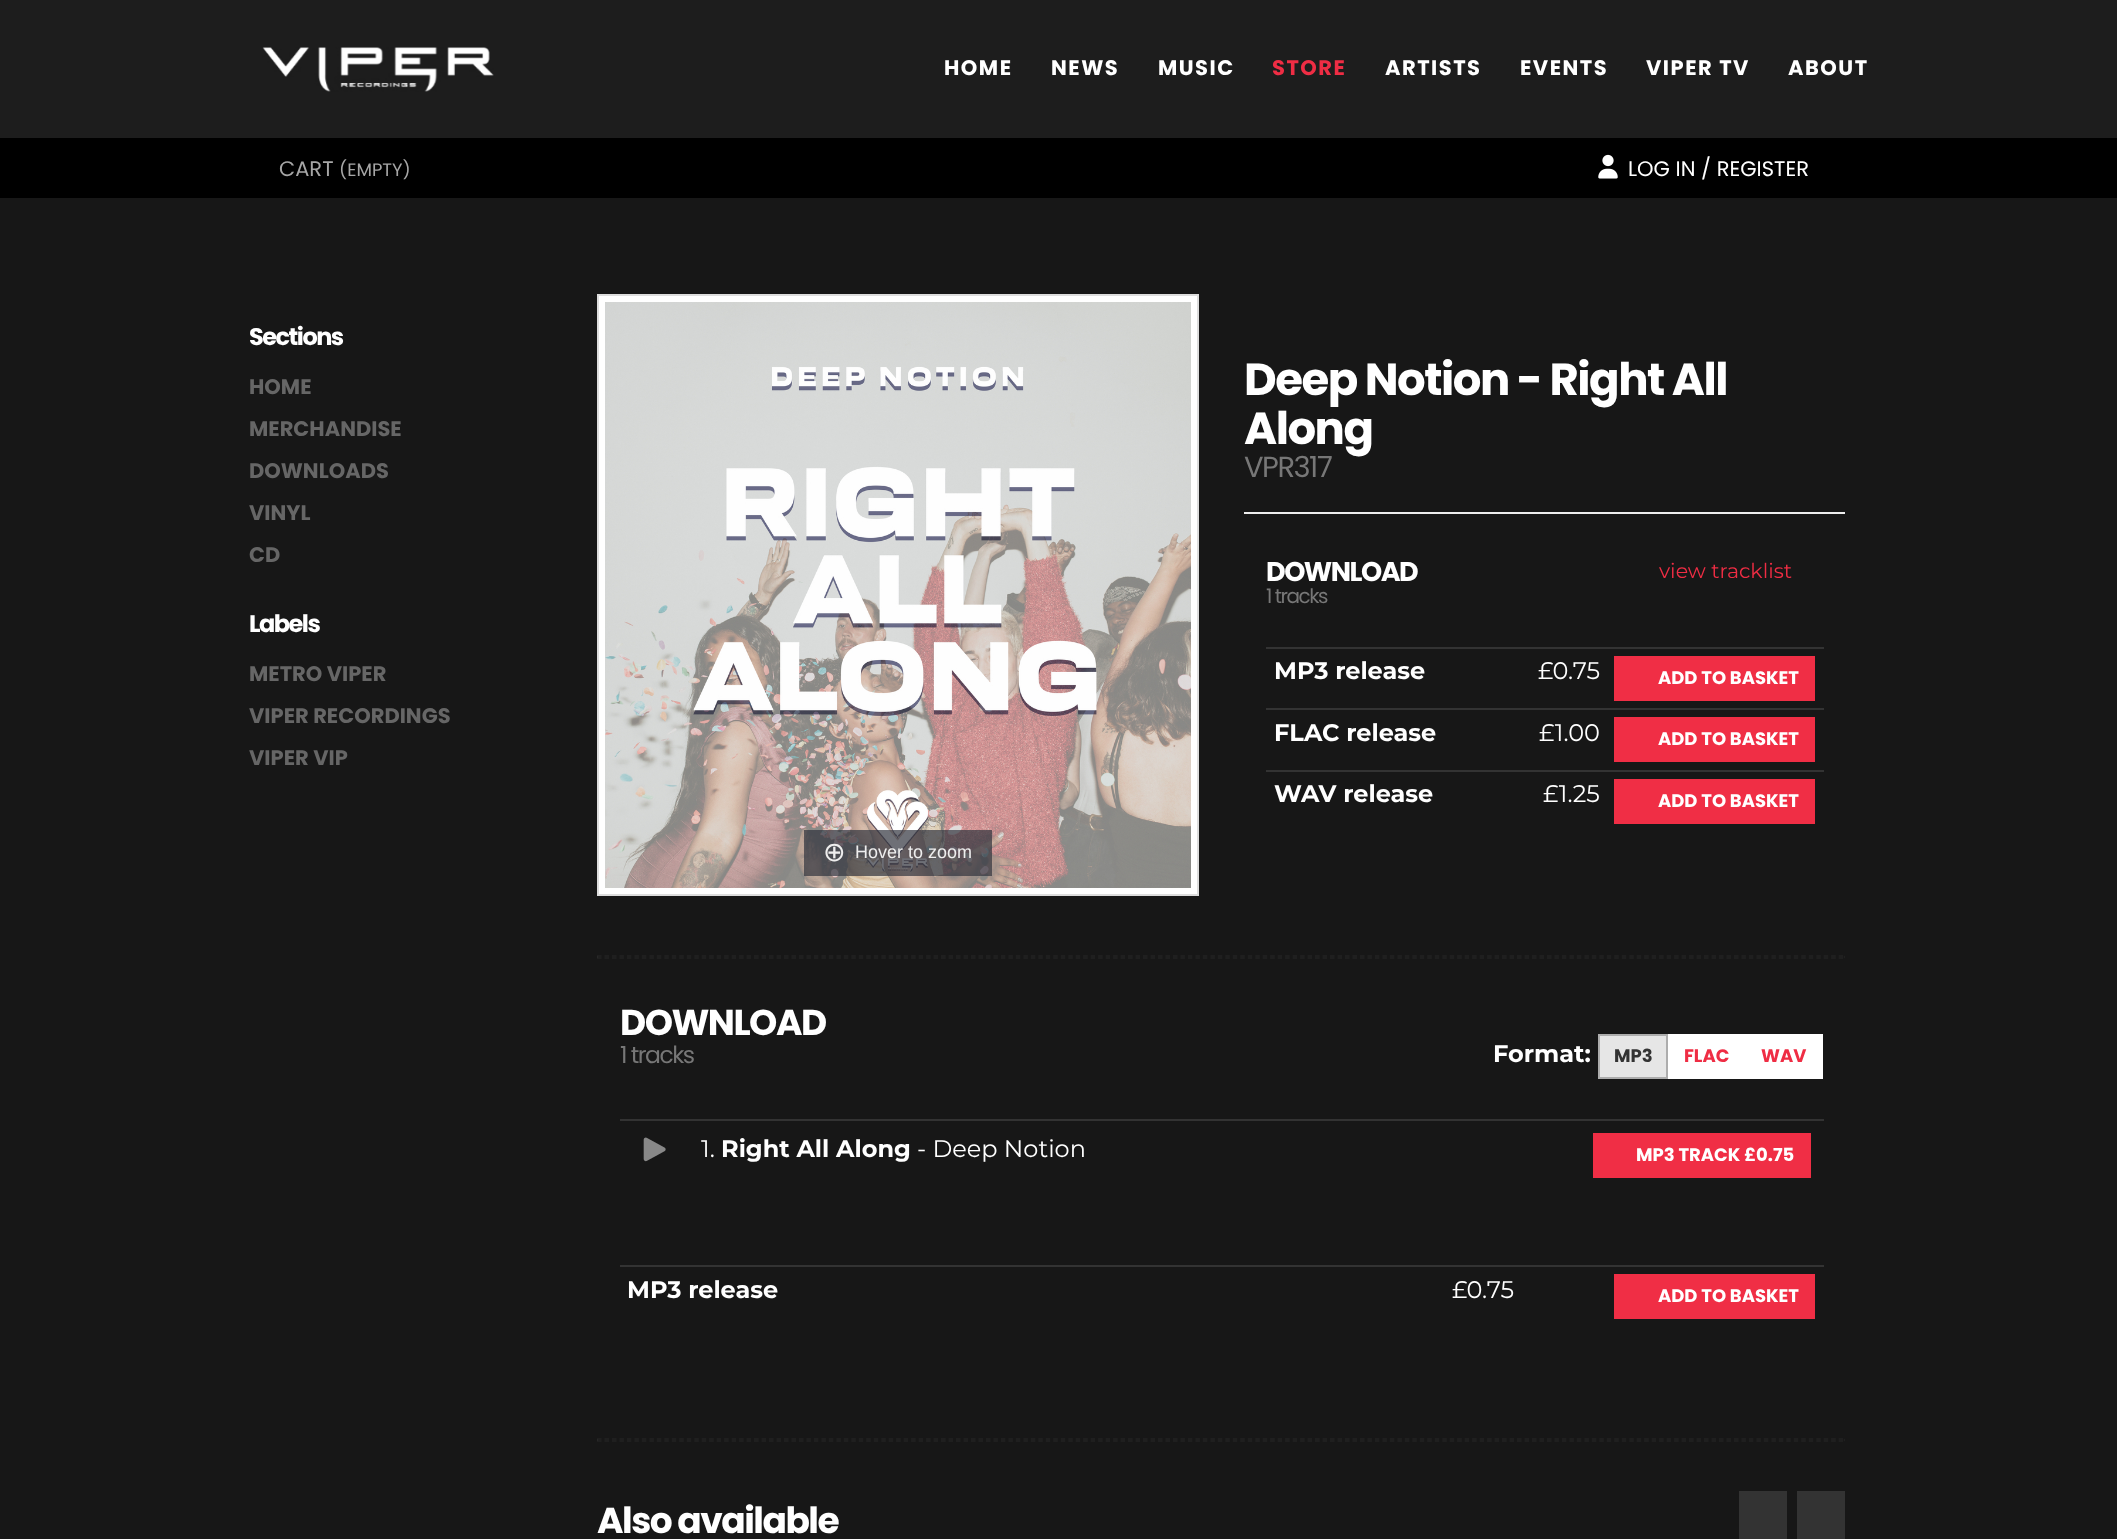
<!DOCTYPE html>
<meta charset="utf-8">
<style>body { margin: 0 } canvas { display: block }</style>
<canvas id="canvas" width="2117" height="1539"></canvas>
<img id="img1" src="images/1.png" hidden>
<img id="img2" src="images/2.png" hidden>
<img id="img3" src="images/3.png" hidden>
<img id="img4" src="images/4.png" hidden>
<script>
window.onload = function () {
    const canvas = document.getElementById('canvas');
    const context = canvas.getContext('2d');
    context.miterLimit = 4;
    context.fontKerning = 'normal';

    context.fillStyle = 'rgb(23, 23, 23)';
    context.fillRect(0, 0, 2117, 1539);
    context.fillStyle = 'rgb(29, 29, 29)';
    context.fillRect(0, 0, 2117, 138);
    context.drawImage(document.getElementById('img1'), 262, 47, 232, 45);
    context.fillStyle = 'rgb(0, 0, 0)';
    context.fillRect(0, 138, 2117, 60);
    context.drawImage(document.getElementById('img2'), 1598, 154, 20, 25);
    context.fillStyle = 'rgb(238, 238, 238)';
    context.fillRect(1244, 512, 601, 2);
    context.fillStyle = 'rgb(51, 51, 51)';
    context.fillRect(1266, 647, 558, 2);
    context.fillStyle = 'rgb(240, 46, 69)';
    context.fillRect(1614, 656, 201, 45);
    context.fillStyle = 'rgb(51, 51, 51)';
    context.fillRect(1266, 708, 558, 2);
    context.fillStyle = 'rgb(240, 46, 69)';
    context.fillRect(1614, 717, 201, 45);
    context.fillStyle = 'rgb(51, 51, 51)';
    context.fillRect(1266, 770, 558, 2);
    context.fillStyle = 'rgb(240, 46, 69)';
    context.fillRect(1614, 779, 201, 45);
    context.fillStyle = 'rgb(255, 255, 255)';
    context.beginPath();
    context.rect(598, 295, 600, 600);
    context.fill();
    context.strokeStyle = 'rgb(221, 221, 221)';
    context.lineWidth = 2;
    context.stroke();
    context.drawImage(document.getElementById('img3'), 605, 302, 586, 586);
    context.fillStyle = 'rgba(49, 51, 61, 0.7)';
    context.fillRect(804, 830, 188, 46);
    context.beginPath();
    context.moveTo(597, 956);
    context.lineTo(1845, 956);
    context.strokeStyle = 'rgb(35, 35, 35)';
    context.lineWidth = 1.5;
    context.setLineDash([4.5, 2.98]);
    context.stroke();
    context.fillStyle = 'rgb(35, 35, 35)';
    context.beginPath();
    context.moveTo(1845, 955.5);
    context.lineTo(1845, 958.5);
    context.lineTo(1843.5, 957);
    context.closePath();
    context.fill();
    context.beginPath();
    context.moveTo(597, 958);
    context.lineTo(1845, 958);
    context.stroke();
    context.fillStyle = 'rgb(43, 43, 43)';
    context.beginPath();
    context.moveTo(597, 958.5);
    context.lineTo(597, 955.5);
    context.lineTo(598.5, 957);
    context.closePath();
    context.fill();
    context.fillStyle = 'rgb(230, 230, 230)';
    context.beginPath();
    context.rect(1599, 1035, 68, 43);
    context.fill();
    context.strokeStyle = 'rgb(173, 173, 173)';
    context.lineWidth = 2;
    context.setLineDash([]);
    context.stroke();
    context.fillStyle = 'rgb(255, 255, 255)';
    context.fillRect(1668, 1034, 155, 45);
    context.drawImage(document.getElementById('img4'), 643, 1137, 23, 25);
    context.fillStyle = 'rgb(51, 51, 51)';
    context.fillRect(620, 1119, 1204, 2);
    context.fillStyle = 'rgb(240, 46, 69)';
    context.fillRect(1593, 1133, 218, 45);
    context.fillStyle = 'rgb(51, 51, 51)';
    context.fillRect(620, 1265, 1204, 2);
    context.fillStyle = 'rgb(240, 46, 69)';
    context.fillRect(1614, 1274, 201, 45);
    context.beginPath();
    context.moveTo(597, 1439);
    context.lineTo(1845, 1439);
    context.strokeStyle = 'rgb(35, 35, 35)';
    context.lineWidth = 1.5;
    context.setLineDash([4.5, 2.98]);
    context.stroke();
    context.fillStyle = 'rgb(35, 35, 35)';
    context.beginPath();
    context.moveTo(1845, 1438.5);
    context.lineTo(1845, 1441.5);
    context.lineTo(1843.5, 1440);
    context.closePath();
    context.fill();
    context.beginPath();
    context.moveTo(597, 1441);
    context.lineTo(1845, 1441);
    context.stroke();
    context.fillStyle = 'rgb(43, 43, 43)';
    context.beginPath();
    context.moveTo(597, 1441.5);
    context.lineTo(597, 1438.5);
    context.lineTo(598.5, 1440);
    context.closePath();
    context.fill();
    context.fillStyle = 'rgb(51, 51, 51)';
    context.fillRect(1739, 1491, 48, 48);
    context.fillRect(1797, 1491, 48, 48);
    context.letterSpacing = '1.5px';
    context.font = 'bold 21px Poppins';
    context.fillStyle = 'rgb(255, 255, 255)';
    context.fillText('HOME', 944, 75);
    context.fillText('NEWS', 1051, 75);
    context.fillText('MUSIC', 1158, 75);
    context.fillStyle = 'rgb(239, 45, 68)';
    context.fillText('STORE', 1272, 75);
    context.fillStyle = 'rgb(255, 255, 255)';
    context.fillText('ARTISTS', 1385, 75);
    context.fillText('EVENTS', 1520, 75);
    context.fillText('VIPER TV', 1646, 75);
    context.fillText('ABOUT', 1788, 75);
    context.letterSpacing = '0px';
    context.font = '21px Poppins';
    context.fillStyle = 'rgb(166, 166, 166)';
    context.fillText('CART', 279, 176);
    context.font = '18px Poppins';
    context.fillText('(EMPTY)', 339, 176);
    context.font = '21px Poppins';
    context.fillStyle = 'rgb(255, 255, 255)';
    context.fillText('LOG IN / REGISTER', 1628, 176);
    context.letterSpacing = '-1.5px';
    context.font = 'bold 24px Poppins';
    context.fillText('Sections', 249, 345);
    context.letterSpacing = '0px';
    context.font = 'bold 21px Poppins';
    context.fillStyle = 'rgb(102, 102, 102)';
    context.fillText('HOME', 249, 394);
    context.fillText('MERCHANDISE', 249, 436);
    context.fillText('DOWNLOADS', 249, 478);
    context.fillText('VINYL', 249, 520);
    context.fillText('CD', 249, 562);
    context.letterSpacing = '-1.5px';
    context.font = 'bold 24px Poppins';
    context.fillStyle = 'rgb(255, 255, 255)';
    context.fillText('Labels', 249, 632);
    context.letterSpacing = '0px';
    context.font = 'bold 21px Poppins';
    context.fillStyle = 'rgb(102, 102, 102)';
    context.fillText('METRO VIPER', 249, 681);
    context.fillText('VIPER RECORDINGS', 249, 723);
    context.fillText('VIPER VIP', 249, 765);
    context.letterSpacing = '-1.5px';
    context.font = 'bold 45px Poppins';
    context.fillStyle = 'rgb(255, 255, 255)';
    context.fillText('Deep Notion - Right All', 1244, 395);
    context.fillText('Along', 1244, 444);
    context.font = '29px Poppins';
    context.fillStyle = 'rgb(119, 119, 119)';
    context.fillText('VPR317', 1244, 477);
    context.font = 'bold 27px Poppins';
    context.fillStyle = 'rgb(255, 255, 255)';
    context.fillText('DOWNLOAD', 1266, 581);
    context.font = '20px Poppins';
    context.fillStyle = 'rgb(119, 119, 119)';
    context.fillText('1 tracks', 1266, 603);
    context.letterSpacing = '0px';
    context.font = '20.5px Montserrat';
    context.fillStyle = 'rgb(239, 45, 68)';
    context.fillText('view tracklist', 1659, 578);
    context.font = 'bold 24px Montserrat';
    context.fillStyle = 'rgb(255, 255, 255)';
    context.fillText('MP3 release', 1274, 679);
    context.font = '24px Montserrat';
    context.fillText('£0.75', 1538, 679);
    context.font = 'bold 18px Poppins';
    context.fillText('ADD TO BASKET', 1658, 684);
    context.font = 'bold 24px Montserrat';
    context.fillText('FLAC release', 1274, 741);
    context.font = '24px Montserrat';
    context.fillText('£1.00', 1539, 741);
    context.font = 'bold 18px Poppins';
    context.fillText('ADD TO BASKET', 1658, 745);
    context.font = 'bold 24px Montserrat';
    context.fillText('WAV release', 1274, 802);
    context.font = '24px Montserrat';
    context.fillText('£1.25', 1543, 802);
    context.font = 'bold 18px Poppins';
    context.fillText('ADD TO BASKET', 1658, 807);
    context.font = '27px DejaVu Sans';
    context.fillStyle = 'rgb(238, 238, 238)';
    context.fillText('⊕', 823, 861);
    context.font = '18px Liberation Sans';
    context.fillText('Hover to zoom', 855, 858);
    context.letterSpacing = '-1.5px';
    context.font = 'bold 36px Poppins';
    context.fillStyle = 'rgb(255, 255, 255)';
    context.fillText('DOWNLOAD', 620, 1035);
    context.font = '23.5px Poppins';
    context.fillStyle = 'rgb(119, 119, 119)';
    context.fillText('1 tracks', 620, 1063);
    context.letterSpacing = '0px';
    context.font = 'bold 24px Montserrat';
    context.fillStyle = 'rgb(255, 255, 255)';
    context.fillText('Format:', 1493, 1062);
    context.font = 'bold 18px Poppins';
    context.fillStyle = 'rgb(51, 51, 51)';
    context.fillText('MP3', 1614, 1062);
    context.fillStyle = 'rgb(239, 45, 68)';
    context.fillText('FLAC', 1684, 1062);
    context.fillText('WAV', 1761, 1062);
    context.font = '24px Montserrat';
    context.fillStyle = 'rgb(255, 255, 255)';
    context.fillText('1.', 701, 1157);
    context.font = 'bold 24px Montserrat';
    context.fillText('Right All Along', 721, 1157);
    context.font = '24px Montserrat';
    context.fillText('- Deep Notion', 917, 1157);
    context.font = 'bold 18px Poppins';
    context.fillText('MP3 TRACK £0.75', 1636, 1161);
    context.font = 'bold 24px Montserrat';
    context.fillText('MP3 release', 627, 1298);
    context.font = '24px Montserrat';
    context.fillText('£0.75', 1452, 1298);
    context.font = 'bold 18px Poppins';
    context.fillText('ADD TO BASKET', 1658, 1302);
    context.letterSpacing = '-1.5px';
    context.font = 'bold 36px Poppins';
    context.fillText('Also available', 597, 1533);
};
</script>
